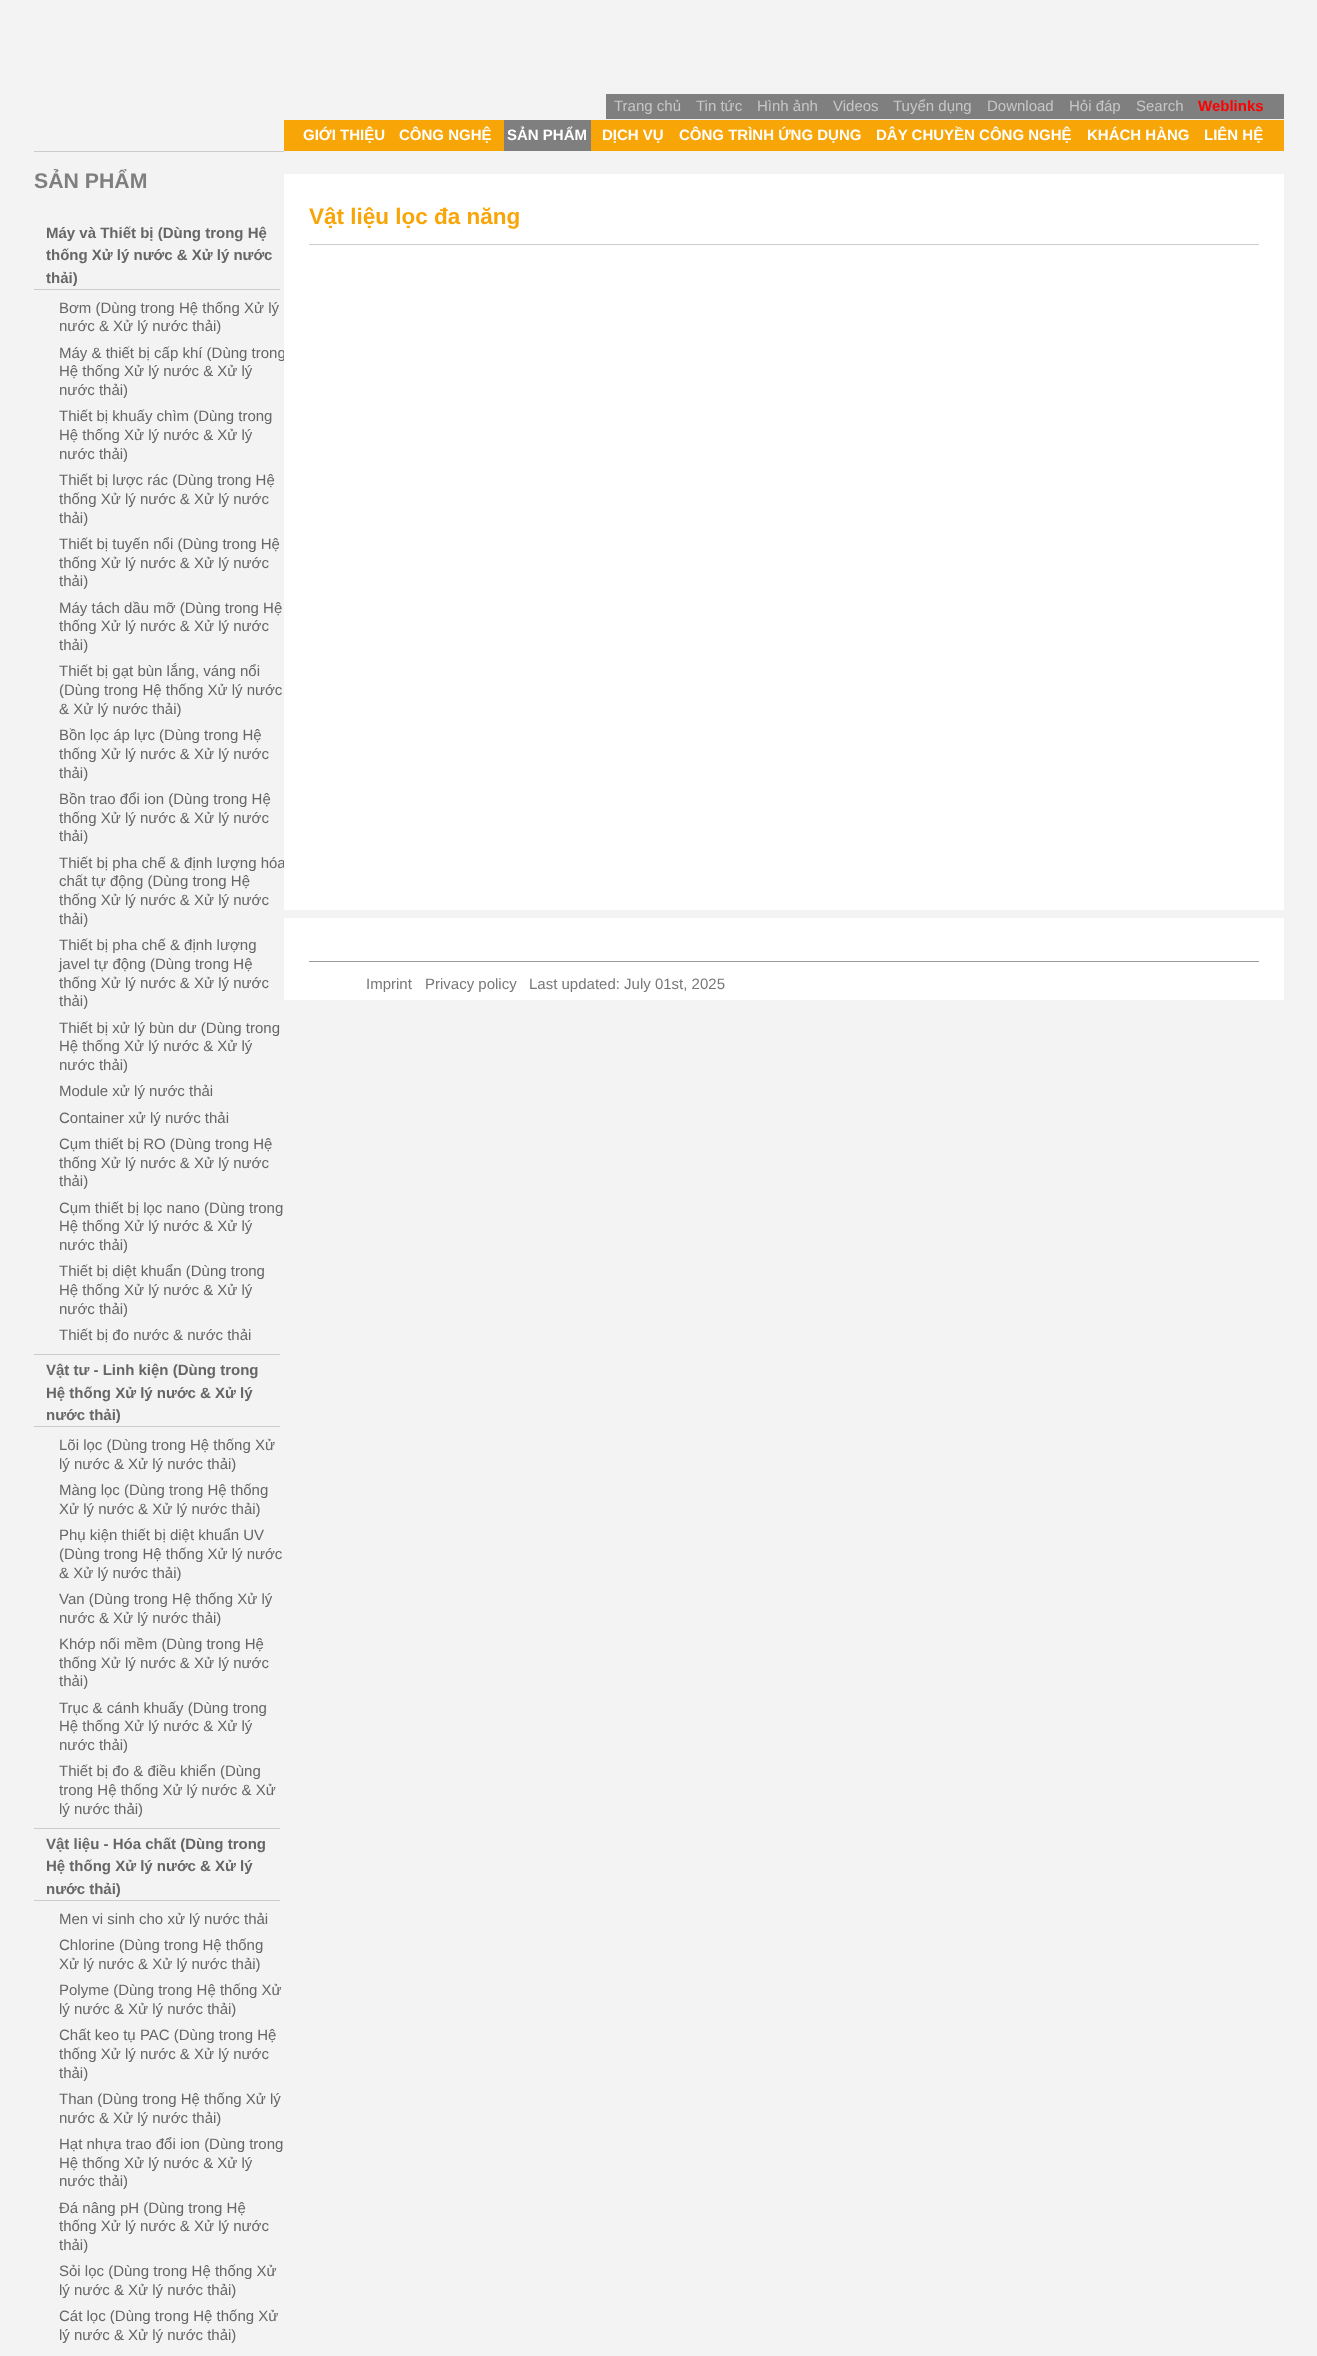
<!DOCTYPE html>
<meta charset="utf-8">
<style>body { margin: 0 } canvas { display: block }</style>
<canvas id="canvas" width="1317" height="2356"></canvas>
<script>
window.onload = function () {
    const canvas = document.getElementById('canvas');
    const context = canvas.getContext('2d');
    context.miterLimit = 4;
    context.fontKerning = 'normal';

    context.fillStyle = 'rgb(243, 243, 243)';
    context.fillRect(0, 0, 1317, 2356);
    context.fillStyle = 'rgb(127, 127, 127)';
    context.fillRect(606, 94, 678, 25);
    context.fillStyle = 'rgb(248, 165, 8)';
    context.fillRect(284, 120, 1000, 31);
    context.fillStyle = 'rgb(127, 127, 127)';
    context.fillRect(504, 120, 87, 31);
    context.fillStyle = 'rgb(204, 204, 204)';
    context.fillRect(34, 151, 250, 1);
    context.fillRect(34, 1354, 246, 1);
    context.fillRect(34, 289, 246, 1);
    context.fillRect(34, 1828, 246, 1);
    context.fillRect(34, 1426, 246, 1);
    context.fillRect(34, 1900, 246, 1);
    context.fillStyle = 'rgb(255, 255, 255)';
    context.fillRect(284, 918, 1000, 82);
    context.fillStyle = 'rgb(153, 153, 153)';
    context.fillRect(309, 961, 950, 1);
    context.font = '15px Liberation Sans';
    context.fillStyle = 'rgb(199, 199, 199)';
    context.fillText('Trang chủ', 614, 111);
    context.fillText('Tin tức', 696, 111);
    context.fillText('Hình ảnh', 757, 111);
    context.fillText('Videos', 833, 111);
    context.fillText('Tuyển dụng', 893, 111);
    context.fillText('Download', 987, 111);
    context.fillText('Hỏi đáp', 1069, 111);
    context.fillText('Search', 1136, 111);
    context.font = 'bold 15px Liberation Sans';
    context.fillStyle = 'rgb(255, 0, 0)';
    context.fillText('Weblinks', 1198, 111);
    context.fillStyle = 'rgb(255, 255, 255)';
    context.fillText('GIỚI THIỆU', 303, 140);
    context.fillText('CÔNG NGHỆ', 399, 140);
    context.fillText('SẢN PHẨM', 507, 140);
    context.fillText('DỊCH VỤ', 602, 140);
    context.fillText('CÔNG TRÌNH ỨNG DỤNG', 679, 140);
    context.fillText('DÂY CHUYỀN CÔNG NGHỆ', 876, 140);
    context.fillText('KHÁCH HÀNG', 1087, 140);
    context.fillText('LIÊN HỆ', 1204, 140);
    context.font = 'bold 21.25px Liberation Sans';
    context.fillStyle = 'rgb(127, 127, 127)';
    context.fillText('SẢN PHẨM', 34, 188);
    context.font = 'bold 15px Liberation Sans';
    context.fillStyle = 'rgb(102, 102, 102)';
    context.fillText('Máy và Thiết bị (Dùng trong Hệ', 46, 238);
    context.fillText('thống Xử lý nước & Xử lý nước', 46, 260);
    context.fillText('thải)', 46, 283);
    context.font = '15px Liberation Sans';
    context.fillText('Bơm (Dùng trong Hệ thống Xử lý', 59, 313);
    context.fillText('nước & Xử lý nước thải)', 59, 331);
    context.fillText('Máy & thiết bị cấp khí (Dùng trong', 59, 358);
    context.fillText('Hệ thống Xử lý nước & Xử lý', 59, 376);
    context.fillText('nước thải)', 59, 395);
    context.fillText('Thiết bị khuấy chìm (Dùng trong', 59, 421);
    context.fillText('Hệ thống Xử lý nước & Xử lý', 59, 440);
    context.fillText('nước thải)', 59, 459);
    context.fillText('Thiết bị lược rác (Dùng trong Hệ', 59, 485);
    context.fillText('thống Xử lý nước & Xử lý nước', 59, 504);
    context.fillText('thải)', 59, 523);
    context.fillText('Thiết bị tuyến nổi (Dùng trong Hệ', 59, 549);
    context.fillText('thống Xử lý nước & Xử lý nước', 59, 568);
    context.fillText('thải)', 59, 586);
    context.fillText('Máy tách dầu mỡ (Dùng trong Hệ', 59, 613);
    context.fillText('thống Xử lý nước & Xử lý nước', 59, 631);
    context.fillText('thải)', 59, 650);
    context.fillText('Thiết bị gạt bùn lắng, váng nổi', 59, 676);
    context.fillText('(Dùng trong Hệ thống Xử lý nước', 59, 695);
    context.fillText('& Xử lý nước thải)', 59, 714);
    context.fillText('Bồn lọc áp lực (Dùng trong Hệ', 59, 740);
    context.fillText('thống Xử lý nước & Xử lý nước', 59, 759);
    context.fillText('thải)', 59, 778);
    context.fillText('Bồn trao đổi ion (Dùng trong Hệ', 59, 804);
    context.fillText('thống Xử lý nước & Xử lý nước', 59, 823);
    context.fillText('thải)', 59, 841);
    context.fillText('Thiết bị pha chế & định lượng hóa', 59, 868);
    context.fillText('chất tự động (Dùng trong Hệ', 59, 886);
    context.fillText('thống Xử lý nước & Xử lý nước', 59, 905);
    context.fillText('thải)', 59, 924);
    context.fillText('Thiết bị pha chế & định lượng', 59, 950);
    context.fillText('javel tự động (Dùng trong Hệ', 59, 969);
    context.fillText('thống Xử lý nước & Xử lý nước', 59, 988);
    context.fillText('thải)', 59, 1006);
    context.fillText('Thiết bị xử lý bùn dư (Dùng trong', 59, 1033);
    context.fillText('Hệ thống Xử lý nước & Xử lý', 59, 1051);
    context.fillText('nước thải)', 59, 1070);
    context.fillText('Module xử lý nước thải', 59, 1096);
    context.fillText('Container xử lý nước thải', 59, 1123);
    context.fillText('Cụm thiết bị RO (Dùng trong Hệ', 59, 1149);
    context.fillText('thống Xử lý nước & Xử lý nước', 59, 1168);
    context.fillText('thải)', 59, 1186);
    context.fillText('Cụm thiết bị lọc nano (Dùng trong', 59, 1213);
    context.fillText('Hệ thống Xử lý nước & Xử lý', 59, 1231);
    context.fillText('nước thải)', 59, 1250);
    context.fillText('Thiết bị diệt khuẩn (Dùng trong', 59, 1276);
    context.fillText('Hệ thống Xử lý nước & Xử lý', 59, 1295);
    context.fillText('nước thải)', 59, 1314);
    context.fillText('Thiết bị đo nước & nước thải', 59, 1340);
    context.font = 'bold 15px Liberation Sans';
    context.fillText('Vật tư - Linh kiện (Dùng trong', 46, 1375);
    context.fillText('Hệ thống Xử lý nước & Xử lý', 46, 1398);
    context.fillText('nước thải)', 46, 1420);
    context.font = '15px Liberation Sans';
    context.fillText('Lõi lọc (Dùng trong Hệ thống Xử', 59, 1450);
    context.fillText('lý nước & Xử lý nước thải)', 59, 1469);
    context.fillText('Màng lọc (Dùng trong Hệ thống', 59, 1495);
    context.fillText('Xử lý nước & Xử lý nước thải)', 59, 1514);
    context.fillText('Phụ kiện thiết bị diệt khuẩn UV', 59, 1540);
    context.fillText('(Dùng trong Hệ thống Xử lý nước', 59, 1559);
    context.fillText('& Xử lý nước thải)', 59, 1578);
    context.fillText('Van (Dùng trong Hệ thống Xử lý', 59, 1604);
    context.fillText('nước & Xử lý nước thải)', 59, 1623);
    context.fillText('Khớp nối mềm (Dùng trong Hệ', 59, 1649);
    context.fillText('thống Xử lý nước & Xử lý nước', 59, 1668);
    context.fillText('thải)', 59, 1686);
    context.fillText('Trục & cánh khuấy (Dùng trong', 59, 1713);
    context.fillText('Hệ thống Xử lý nước & Xử lý', 59, 1731);
    context.fillText('nước thải)', 59, 1750);
    context.fillText('Thiết bị đo & điều khiển (Dùng', 59, 1776);
    context.fillText('trong Hệ thống Xử lý nước & Xử', 59, 1795);
    context.fillText('lý nước thải)', 59, 1814);
    context.font = 'bold 15px Liberation Sans';
    context.fillText('Vật liệu - Hóa chất (Dùng trong', 46, 1849);
    context.fillText('Hệ thống Xử lý nước & Xử lý', 46, 1871);
    context.fillText('nước thải)', 46, 1894);
    context.font = '15px Liberation Sans';
    context.fillText('Men vi sinh cho xử lý nước thải', 59, 1924);
    context.fillText('Chlorine (Dùng trong Hệ thống', 59, 1950);
    context.fillText('Xử lý nước & Xử lý nước thải)', 59, 1969);
    context.fillText('Polyme (Dùng trong Hệ thống Xử', 59, 1995);
    context.fillText('lý nước & Xử lý nước thải)', 59, 2014);
    context.fillText('Chất keo tụ PAC (Dùng trong Hệ', 59, 2040);
    context.fillText('thống Xử lý nước & Xử lý nước', 59, 2059);
    context.fillText('thải)', 59, 2078);
    context.fillText('Than (Dùng trong Hệ thống Xử lý', 59, 2104);
    context.fillText('nước & Xử lý nước thải)', 59, 2123);
    context.fillText('Hạt nhựa trao đổi ion (Dùng trong', 59, 2149);
    context.fillText('Hệ thống Xử lý nước & Xử lý', 59, 2168);
    context.fillText('nước thải)', 59, 2186);
    context.fillText('Đá nâng pH (Dùng trong Hệ', 59, 2213);
    context.fillText('thống Xử lý nước & Xử lý nước', 59, 2231);
    context.fillText('thải)', 59, 2250);
    context.fillText('Sỏi lọc (Dùng trong Hệ thống Xử', 59, 2276);
    context.fillText('lý nước & Xử lý nước thải)', 59, 2295);
    context.fillText('Cát lọc (Dùng trong Hệ thống Xử', 59, 2321);
    context.fillText('lý nước & Xử lý nước thải)', 59, 2340);
    context.fillStyle = 'rgb(255, 255, 255)';
    context.fillRect(284, 174, 1000, 736);
    context.fillStyle = 'rgb(204, 204, 204)';
    context.fillRect(309, 244, 950, 1);
    context.font = 'bold 22.5px Liberation Sans';
    context.fillStyle = 'rgb(248, 165, 8)';
    context.fillText('Vật liệu lọc đa năng', 309, 224);
    context.font = '15px Liberation Sans';
    context.fillStyle = 'rgb(120, 119, 119)';
    context.fillText('Imprint', 366, 989);
    context.fillText('Privacy policy', 425, 989);
    context.fillText('Last updated: July 01st, 2025', 529, 989);
};
</script>
